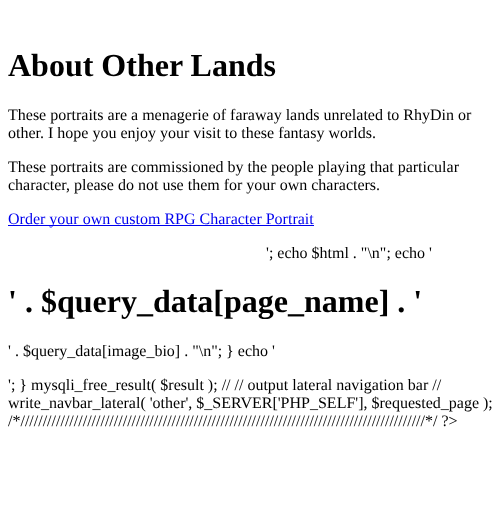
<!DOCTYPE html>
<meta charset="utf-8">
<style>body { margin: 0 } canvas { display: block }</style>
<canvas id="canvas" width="501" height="518"></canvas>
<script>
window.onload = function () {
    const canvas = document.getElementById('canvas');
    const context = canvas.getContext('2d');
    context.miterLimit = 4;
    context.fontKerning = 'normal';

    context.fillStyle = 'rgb(255, 255, 255)';
    context.fillRect(0, 0, 501, 518);
    context.fillStyle = 'rgb(0, 0, 238)';
    context.fillRect(8, 225, 306, 1);
    context.font = 'bold 32px Liberation Serif';
    context.fillStyle = 'rgb(0, 0, 0)';
    context.fillText('About Other Lands', 8, 76);
    context.font = '16px Liberation Serif';
    context.fillText('These portraits are a menagerie of faraway lands unrelated to RhyDin or', 8, 120);
    context.fillText('other. I hope you enjoy your visit to these fantasy worlds.', 8, 138);
    context.fillText('These portraits are commissioned by the people playing that particular', 8, 172);
    context.fillText('character, please do not use them for your own characters.', 8, 190);
    context.fillStyle = 'rgb(0, 0, 238)';
    context.fillText('Order your own custom RPG Character Portrait', 8, 224);
    context.fillStyle = 'rgb(0, 0, 0)';
    context.fillText('\'; echo $html . "\\n"; echo \'', 266, 258);
    context.font = 'bold 32px Liberation Serif';
    context.fillText('\' . $query_data[page_name] . \'', 8, 312);
    context.font = '16px Liberation Serif';
    context.fillText('\' . $query_data[image_bio] . "\\n"; } echo \'', 8, 356);
    context.fillText('\'; } mysqli_free_result( $result ); // // output lateral navigation bar //', 8, 390);
    context.fillText('write_navbar_lateral( \'other\', $_SERVER[\'PHP_SELF\'], $requested_page );', 8, 408);
    context.fillText('/*///////////////////////////////////////////////////////////////////////////////////////////*/ ?>', 8, 426);
};
</script>
